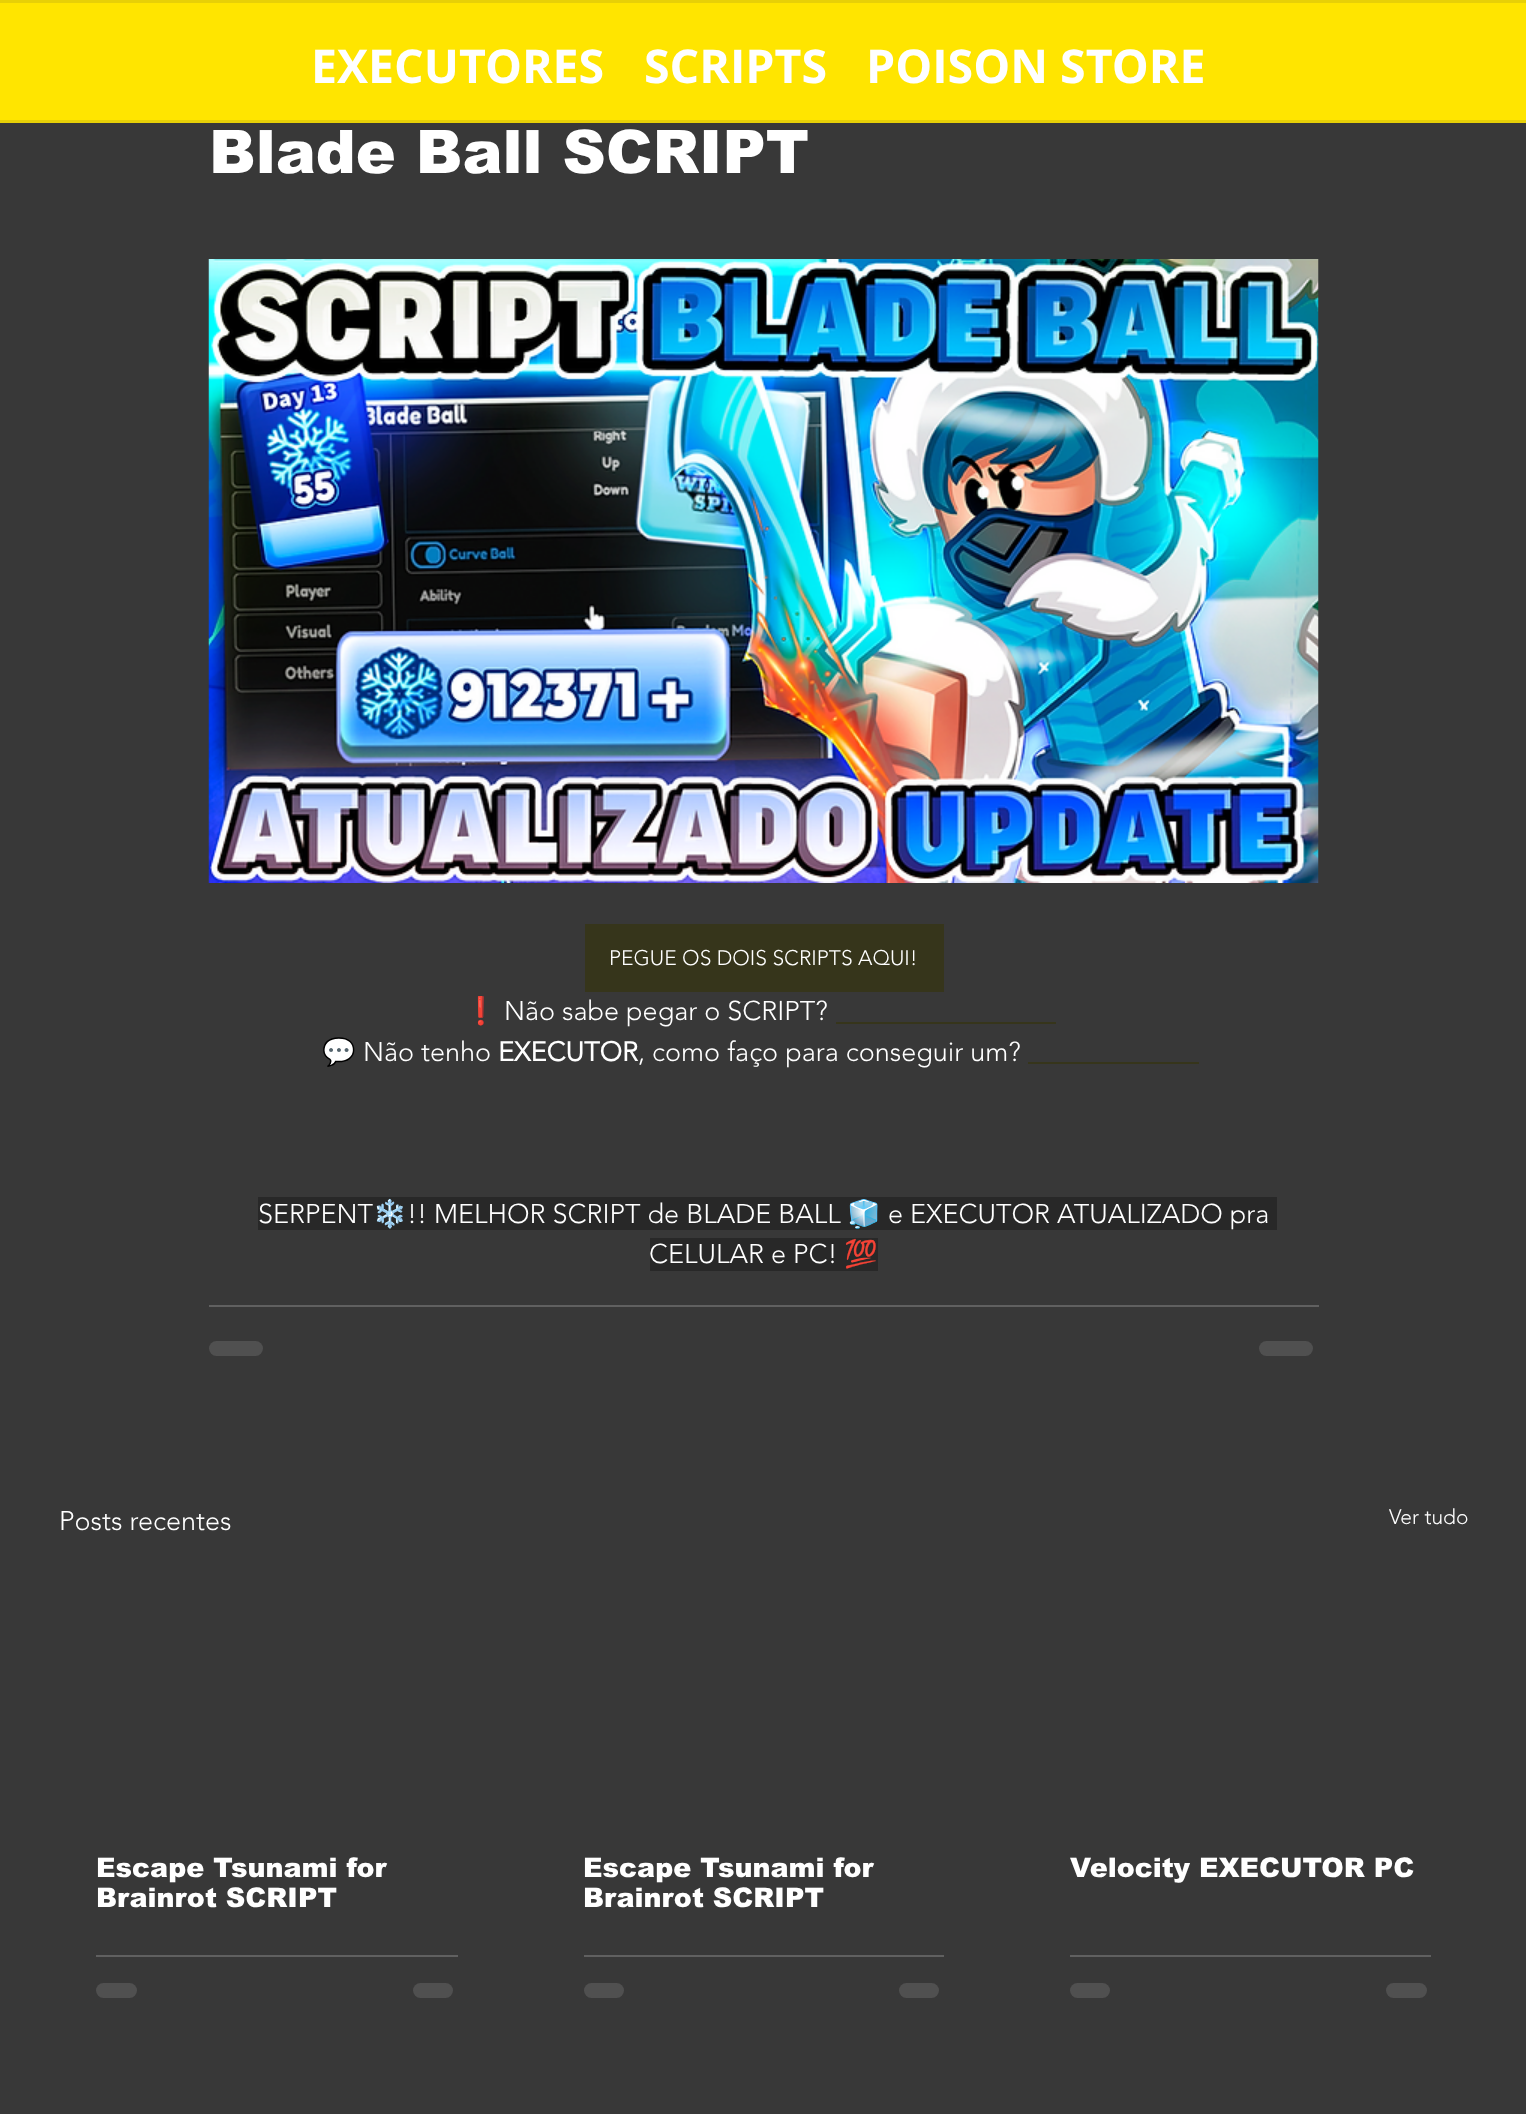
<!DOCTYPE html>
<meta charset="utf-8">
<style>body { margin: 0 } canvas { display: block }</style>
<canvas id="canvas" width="1526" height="2114"></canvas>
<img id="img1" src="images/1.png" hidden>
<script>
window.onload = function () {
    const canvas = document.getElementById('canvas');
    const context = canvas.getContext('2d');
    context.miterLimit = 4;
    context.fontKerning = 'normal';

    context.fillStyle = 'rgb(56, 56, 56)';
    context.fillRect(0, 0, 1526, 2114);
    context.fillStyle = 'rgb(231, 208, 7)';
    context.fillRect(0, 0, 1526, 123);
    context.fillStyle = 'rgb(255, 229, 0)';
    context.fillRect(0, 3, 1526, 117);
    context.drawImage(document.getElementById('img1'), 208, 259, 1111, 624);
    context.fillStyle = 'rgb(54, 53, 27)';
    context.fillRect(585, 924, 359, 68);
    context.fillRect(836, 1022, 220, 2);
    context.fillRect(1028, 1062, 171, 2);
    context.fillStyle = 'rgb(40, 40, 40)';
    context.fillRect(258, 1197, 1019, 33);
    context.fillRect(650, 1238, 228, 33);
    context.fillStyle = 'rgb(96, 96, 96)';
    context.fillRect(209, 1305, 1110, 2);
    context.fillStyle = 'rgb(80, 80, 80)';
    context.beginPath();
    context.roundRect(209, 1341, 54, 15, 7.5);
    context.fill();
    context.beginPath();
    context.roundRect(1259, 1341, 54, 15, 7.5);
    context.fill();
    context.fillStyle = 'rgb(96, 96, 96)';
    context.fillRect(96, 1955, 362, 2);
    context.fillStyle = 'rgb(80, 80, 80)';
    context.beginPath();
    context.roundRect(96, 1983, 41, 15, 7.5);
    context.fill();
    context.beginPath();
    context.roundRect(413, 1983, 40, 15, 7.5);
    context.fill();
    context.fillStyle = 'rgb(96, 96, 96)';
    context.fillRect(584, 1955, 360, 2);
    context.fillStyle = 'rgb(80, 80, 80)';
    context.beginPath();
    context.roundRect(584, 1983, 40, 15, 7.5);
    context.fill();
    context.beginPath();
    context.roundRect(899, 1983, 40, 15, 7.5);
    context.fill();
    context.fillStyle = 'rgb(96, 96, 96)';
    context.fillRect(1070, 1955, 361, 2);
    context.fillStyle = 'rgb(80, 80, 80)';
    context.beginPath();
    context.roundRect(1070, 1983, 40, 15, 7.5);
    context.fill();
    context.beginPath();
    context.roundRect(1386, 1983, 41, 15, 7.5);
    context.fill();
    context.font = 'bold 46.5px Open Sans';
    context.fillStyle = 'rgb(255, 255, 255)';
    context.fillText('EXECUTORES', 311, 83);
    context.fillText('SCRIPTS', 644, 83);
    context.fillText('POISON STORE', 866, 83);
    context.font = '900 60px arial';
    context.fillText('Blade Ball SCRIPT', 209, 173);
    context.font = '300 21px "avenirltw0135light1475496"';
    context.fillText('PEGUE OS DOIS SCRIPTS AQUI!', 609, 965);
    context.font = '27px Noto Color Emoji';
    context.fillText('❗', 464, 1020);
    context.font = '300 27px "avenirltw0135light1475496"';
    context.fillText('Não sabe pegar o SCRIPT?', 504, 1020);
    context.font = '27px Noto Color Emoji';
    context.fillText('💬', 322, 1061);
    context.font = '300 27px "avenirltw0135light1475496"';
    context.fillText('Não tenho', 363, 1061);
    context.font = 'bold 27px "avenirltw0135light1475496"';
    context.fillText('EXECUTOR', 498, 1061);
    context.font = '300 27px "avenirltw0135light1475496"';
    context.fillText(', como faço para conseguir um?', 638, 1061);
    context.fillText('SERPENT', 258, 1223);
    context.font = '27px Noto Color Emoji';
    context.fillText('❄️', 373, 1223);
    context.font = '300 27px "avenirltw0135light1475496"';
    context.fillText('!! MELHOR SCRIPT de BLADE BALL', 407, 1223);
    context.font = '27px Noto Color Emoji';
    context.fillText('🧊', 847, 1223);
    context.font = '300 27px "avenirltw0135light1475496"';
    context.fillText('e EXECUTOR ATUALIZADO pra', 888, 1223);
    context.fillText('CELULAR e PC!', 649, 1263);
    context.font = '27px Noto Color Emoji';
    context.fillText('💯', 844, 1263);
    context.font = '300 27px "avenirltw0135light1475496"';
    context.fillText('Posts recentes', 59, 1530);
    context.font = '300 21px "avenirltw0135light1475496"';
    context.fillText('Ver tudo', 1389, 1524);
    context.font = '900 27px arial';
    context.fillText('Escape Tsunami for', 96, 1877);
    context.fillText('Brainrot SCRIPT', 96, 1907);
    context.fillText('Escape Tsunami for', 583, 1877);
    context.fillText('Brainrot SCRIPT', 583, 1907);
    context.fillText('Velocity EXECUTOR PC', 1070, 1877);
};
</script>
